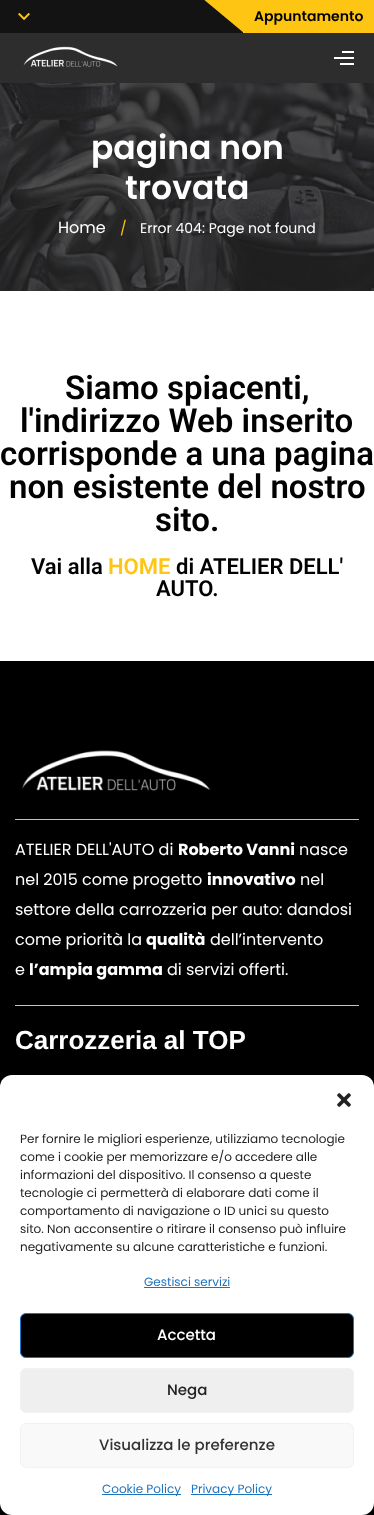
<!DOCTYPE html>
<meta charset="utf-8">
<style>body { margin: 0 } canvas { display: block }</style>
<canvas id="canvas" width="374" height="1515"></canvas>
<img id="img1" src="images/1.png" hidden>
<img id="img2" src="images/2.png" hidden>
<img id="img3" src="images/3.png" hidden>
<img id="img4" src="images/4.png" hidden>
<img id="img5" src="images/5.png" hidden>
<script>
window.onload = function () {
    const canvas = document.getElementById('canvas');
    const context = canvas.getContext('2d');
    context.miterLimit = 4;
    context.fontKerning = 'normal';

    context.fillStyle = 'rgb(255, 255, 255)';
    context.fillRect(0, 0, 374, 1515);
    context.fillStyle = 'rgb(19, 19, 19)';
    context.fillRect(0, 0, 243, 33);
    context.drawImage(document.getElementById('img1'), 18, 12, 12, 9);
    context.fillStyle = 'rgb(255, 197, 19)';
    context.fillRect(243, 0, 131, 33);
    context.beginPath();
    context.moveTo(244, -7);
    context.lineTo(244, 33);
    context.lineTo(196, -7);
    context.closePath();
    context.fill();
    context.fillStyle = 'rgb(45, 45, 45)';
    context.fillRect(0, 33, 374, 50);
    context.drawImage(document.getElementById('img2'), 23, 46, 95, 21);
    context.fillStyle = 'rgb(255, 255, 255)';
    context.fillRect(342, 51, 12, 2);
    context.fillRect(334, 57, 20, 2);
    context.fillRect(340, 63, 14, 2);
    context.drawImage(document.getElementById('img3'), 0, 83, 374, 208);
    context.fillStyle = 'rgb(0, 0, 0)';
    context.fillRect(0, 661, 374, 854);
    context.fillStyle = 'rgb(255, 197, 19)';
    context.fillRect(15, 819, 344, 1);
    context.drawImage(document.getElementById('img4'), 22, 750, 189, 41);
    context.fillRect(15, 1005, 344, 1);
    context.fillStyle = 'rgb(255, 255, 255)';
    context.beginPath();
    context.roundRect(0, 1075, 374, 440, 12);
    context.fill();
    context.drawImage(document.getElementById('img5'), 337, 1093, 14, 14);
    context.fillStyle = 'rgb(30, 115, 190)';
    context.fillRect(144, 1287, 86, 1);
    context.fillStyle = 'rgb(0, 0, 0)';
    context.beginPath();
    context.roundRect(20.5, 1313.5, 333, 44, 5.5);
    context.fill();
    context.strokeStyle = 'rgb(30, 115, 190)';
    context.stroke();
    context.fillStyle = 'rgb(239, 239, 239)';
    context.beginPath();
    context.roundRect(20.5, 1368.5, 333, 44, 5.5);
    context.fill();
    context.strokeStyle = 'rgb(242, 242, 242)';
    context.stroke();
    context.fillStyle = 'rgb(249, 249, 249)';
    context.beginPath();
    context.roundRect(20.5, 1423.5, 333, 44, 5.5);
    context.fill();
    context.stroke();
    context.fillStyle = 'rgb(30, 115, 190)';
    context.fillRect(102, 1494, 79, 1);
    context.fillRect(191, 1494, 81, 1);
    context.font = '600 14px Poppins';
    context.fillStyle = 'rgb(1, 1, 1)';
    context.fillText('Appuntamento', 254, 21);
    context.font = '600 33px Poppins';
    context.fillStyle = 'rgb(255, 255, 255)';
    context.fillText('pagina non', 91, 159);
    context.fillText('trovata', 125, 199);
    context.font = '16px Poppins';
    context.fillText('Home', 58, 233);
    context.font = '14px Poppins';
    context.fillStyle = 'rgb(255, 197, 19)';
    context.fillText('/', 120, 233);
    context.fillStyle = 'rgb(255, 255, 255)';
    context.fillText('Error 404: Page not found', 140, 233);
    context.font = '600 33px Roboto';
    context.fillStyle = 'rgb(1, 1, 1)';
    context.fillText('Siamo spiacenti,', 65, 399);
    context.fillText('l\'indirizzo Web inserito', 20, 432);
    context.fillText('corrisponde a una pagina', 0, 465);
    context.fillText('non esistente del nostro', 9, 498);
    context.fillText('sito.', 155, 531);
    context.font = '600 22px Roboto';
    context.fillText('Vai alla', 31, 574);
    context.fillStyle = 'rgb(255, 197, 19)';
    context.fillText('HOME', 108, 574);
    context.fillStyle = 'rgb(1, 1, 1)';
    context.fillText('di ATELIER DELL\'', 176, 574);
    context.fillText('AUTO.', 156, 596);
    context.font = '16px Poppins';
    context.fillStyle = 'rgb(255, 255, 255)';
    context.fillText('ATELIER DELL\'AUTO di', 15, 855);
    context.font = 'bold 16px Poppins';
    context.fillText('Roberto Vanni', 178, 855);
    context.font = '16px Poppins';
    context.fillText('nasce', 299, 855);
    context.fillText('nel 2015 come progetto', 15, 885);
    context.font = 'bold 16px Poppins';
    context.fillText('innovativo', 207, 885);
    context.font = '16px Poppins';
    context.fillText('nel', 300, 885);
    context.fillText('settore della carrozzeria per auto: dandosi', 15, 915);
    context.fillText('come priorità la', 15, 945);
    context.font = 'bold 16px Poppins';
    context.fillText('qualità', 146, 945);
    context.font = '16px Poppins';
    context.fillText('dell’intervento', 210, 945);
    context.fillText('e', 15, 975);
    context.font = 'bold 16px Poppins';
    context.fillText('l’ampia gamma', 29, 975);
    context.font = '16px Poppins';
    context.fillText('di servizi offerti.', 167, 975);
    context.font = 'bold 26px Liberation Sans';
    context.fillText('Carrozzeria al TOP', 15, 1049);
    context.font = '12px Poppins';
    context.fillStyle = 'rgb(34, 34, 34)';
    context.fillText('Per fornire le migliori esperienze, utilizziamo tecnologie', 20, 1143);
    context.fillText('come i cookie per memorizzare e/o accedere alle', 20, 1161);
    context.fillText('informazioni del dispositivo. Il consenso a queste', 20, 1179);
    context.fillText('tecnologie ci permetterà di elaborare dati come il', 20, 1197);
    context.fillText('comportamento di navigazione o ID unici su questo', 20, 1215);
    context.fillText('sito. Non acconsentire o ritirare il consenso può influire', 20, 1233);
    context.fillText('negativamente su alcune caratteristiche e funzioni.', 20, 1251);
    context.fillStyle = 'rgb(30, 115, 190)';
    context.fillText('Gestisci servizi', 144, 1286);
    context.font = '500 15px Poppins';
    context.fillStyle = 'rgb(255, 255, 255)';
    context.fillText('Accetta', 157, 1340);
    context.fillStyle = 'rgb(34, 34, 34)';
    context.fillText('Nega', 167, 1395);
    context.fillStyle = 'rgb(51, 51, 51)';
    context.fillText('Visualizza le preferenze', 99, 1450);
    context.font = '12px Poppins';
    context.fillStyle = 'rgb(30, 115, 190)';
    context.fillText('Cookie Policy', 102, 1493);
    context.fillText('Privacy Policy', 191, 1493);
};
</script>
